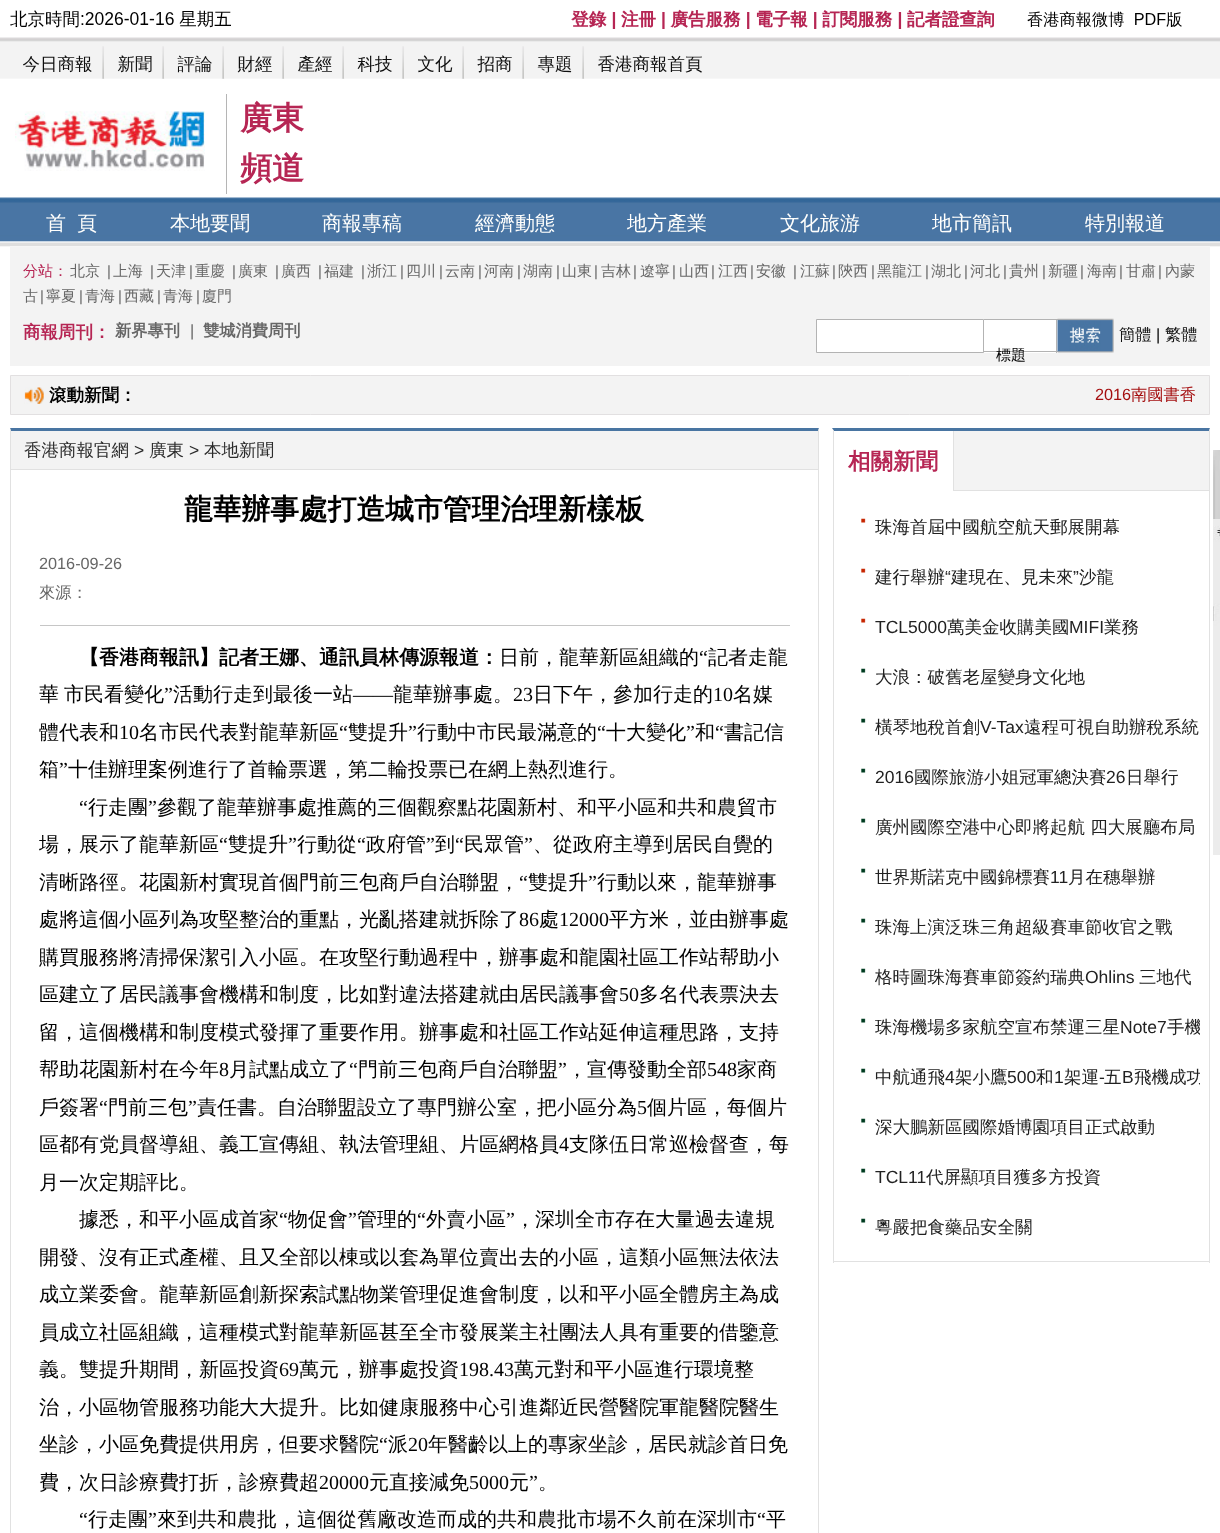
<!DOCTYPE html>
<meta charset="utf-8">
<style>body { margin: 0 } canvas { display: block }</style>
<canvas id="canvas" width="1220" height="1533"></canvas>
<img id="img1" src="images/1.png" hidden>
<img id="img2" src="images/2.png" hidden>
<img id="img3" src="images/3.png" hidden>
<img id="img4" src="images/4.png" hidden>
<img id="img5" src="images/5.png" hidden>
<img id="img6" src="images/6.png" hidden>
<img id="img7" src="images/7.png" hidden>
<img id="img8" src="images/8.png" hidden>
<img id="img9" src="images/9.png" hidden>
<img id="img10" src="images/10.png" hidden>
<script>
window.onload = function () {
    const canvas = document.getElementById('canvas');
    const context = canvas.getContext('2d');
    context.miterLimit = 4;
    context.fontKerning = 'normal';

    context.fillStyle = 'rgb(255, 255, 255)';
    context.fillRect(0, 0, 1220, 1533);
    context.drawImage(document.getElementById('img1'), 0, 37, 1220, 210);
    context.drawImage(document.getElementById('img2'), 10, 9, 1172, 20);
    context.drawImage(document.getElementById('img3'), 23, 46, 679, 33);
    context.drawImage(document.getElementById('img4'), 15, 111, 190, 60);
    context.fillStyle = 'rgb(181, 181, 181)';
    context.fillRect(226, 94, 1, 100);
    context.fillStyle = 'rgb(243, 243, 243)';
    context.fillRect(10, 247, 1200, 119);
    context.fillStyle = 'rgb(255, 255, 255)';
    context.beginPath();
    context.rect(816.5, 319.5, 167, 33);
    context.fill();
    context.strokeStyle = 'rgb(179, 179, 179)';
    context.stroke();
    context.fillRect(984, 320, 74, 33);
    context.fillStyle = 'rgb(179, 179, 179)';
    context.fillRect(984, 319, 74, 1);
    context.fillRect(1056, 319, 1, 34);
    context.fillRect(984, 351, 74, 1);
    context.drawImage(document.getElementById('img5'), 1057, 318, 57, 35);
    context.fillStyle = 'rgb(243, 243, 243)';
    context.beginPath();
    context.rect(10.5, 375.5, 1199, 39);
    context.fill();
    context.strokeStyle = 'rgb(226, 224, 225)';
    context.stroke();
    context.drawImage(document.getElementById('img6'), 24, 387, 20, 17);
    context.fillRect(11, 431, 807, 38);
    context.fillStyle = 'rgb(73, 117, 162)';
    context.beginPath();
    context.moveTo(10, 428);
    context.lineTo(819, 428);
    context.lineTo(818, 431);
    context.lineTo(11, 431);
    context.closePath();
    context.fill();
    context.fillStyle = 'rgb(225, 225, 225)';
    context.beginPath();
    context.moveTo(819, 428);
    context.lineTo(819, 470);
    context.lineTo(818, 469);
    context.lineTo(818, 431);
    context.closePath();
    context.fill();
    context.fillRect(10, 469, 809, 1);
    context.beginPath();
    context.moveTo(10, 470);
    context.lineTo(10, 428);
    context.lineTo(11, 431);
    context.lineTo(11, 469);
    context.closePath();
    context.fill();
    context.fillRect(818, 470, 1, 1063);
    context.fillRect(10, 470, 1, 1063);
    context.fillStyle = 'rgb(198, 198, 198)';
    context.fillRect(40, 625, 750, 1);
    context.fillStyle = 'rgb(243, 243, 243)';
    context.fillRect(954, 431, 255, 59);
    context.fillStyle = 'rgb(73, 117, 162)';
    context.beginPath();
    context.moveTo(832, 428);
    context.lineTo(1210, 428);
    context.lineTo(1209, 431);
    context.lineTo(834, 431);
    context.closePath();
    context.fill();
    context.fillStyle = 'rgb(225, 225, 225)';
    context.beginPath();
    context.moveTo(1210, 428);
    context.lineTo(1210, 491);
    context.lineTo(1209, 490);
    context.lineTo(1209, 431);
    context.closePath();
    context.fill();
    context.fillRect(833, 490, 377, 1);
    context.save();
    context.beginPath();
    context.rect(833, 428, 377, 853);
    context.clip();
    context.beginPath();
    context.moveTo(832, 491);
    context.lineTo(832, 428);
    context.lineTo(834, 431);
    context.lineTo(834, 490);
    context.closePath();
    context.fill();
    context.restore();
    context.fillStyle = 'rgb(255, 255, 255)';
    context.fillRect(834, 490, 119, 1);
    context.fillStyle = 'rgb(225, 225, 225)';
    context.fillRect(953, 431, 1, 60);
    context.fillRect(1209, 491, 1, 772);
    context.fillRect(833, 1261, 377, 1);
    context.fillRect(833, 491, 1, 772);
    context.drawImage(document.getElementById('img7'), 861, 514, 5, 9);
    context.drawImage(document.getElementById('img7'), 861, 564, 5, 9);
    context.drawImage(document.getElementById('img7'), 861, 614, 5, 9);
    context.drawImage(document.getElementById('img8'), 861, 668, 5, 5);
    context.drawImage(document.getElementById('img8'), 861, 718, 5, 5);
    context.drawImage(document.getElementById('img8'), 861, 768, 5, 5);
    context.drawImage(document.getElementById('img8'), 861, 818, 5, 5);
    context.drawImage(document.getElementById('img8'), 861, 868, 5, 5);
    context.drawImage(document.getElementById('img8'), 861, 918, 5, 5);
    context.drawImage(document.getElementById('img8'), 861, 968, 5, 5);
    context.drawImage(document.getElementById('img8'), 861, 1018, 5, 5);
    context.drawImage(document.getElementById('img8'), 861, 1068, 5, 5);
    context.drawImage(document.getElementById('img8'), 861, 1118, 5, 5);
    context.drawImage(document.getElementById('img8'), 861, 1168, 5, 5);
    context.drawImage(document.getElementById('img8'), 861, 1218, 5, 5);
    context.drawImage(document.getElementById('img9'), 1213, 450, 7, 69);
    context.drawImage(document.getElementById('img10'), 1213, 519, 7, 336);
    context.font = 'bold 32px WenQuanYi Zen Hei';
    context.fillStyle = 'rgb(182, 38, 84)';
    context.fillText('廣東', 240, 129);
    context.fillText('頻道', 240, 179);
    context.font = '500 20px WenQuanYi Zen Hei';
    context.fillStyle = 'rgb(255, 255, 253)';
    context.fillText('首', 46, 230);
    context.fillText('頁', 77, 230);
    context.fillText('本地要聞', 170, 230);
    context.fillText('商報專稿', 322, 230);
    context.fillText('經濟動態', 475, 230);
    context.fillText('地方產業', 627, 230);
    context.fillText('文化旅游', 780, 230);
    context.fillText('地市簡訊', 932, 230);
    context.fillText('特別報道', 1085, 230);
    context.font = '500 15px WenQuanYi Zen Hei';
    context.fillStyle = 'rgb(182, 38, 84)';
    context.fillText('分站：', 23, 276);
    context.fillStyle = 'rgb(102, 102, 102)';
    context.fillText('北京', 70, 276);
    context.font = '15px Liberation Sans';
    context.fillText('|', 107, 276);
    context.font = '500 15px WenQuanYi Zen Hei';
    context.fillText('上海', 113, 276);
    context.font = '15px Liberation Sans';
    context.fillText('|', 150, 276);
    context.font = '500 15px WenQuanYi Zen Hei';
    context.fillText('天津', 156, 276);
    context.font = '15px Liberation Sans';
    context.fillText('|', 189, 276);
    context.font = '500 15px WenQuanYi Zen Hei';
    context.fillText('重慶', 195, 276);
    context.font = '15px Liberation Sans';
    context.fillText('|', 232, 276);
    context.font = '500 15px WenQuanYi Zen Hei';
    context.fillText('廣東', 238, 276);
    context.font = '15px Liberation Sans';
    context.fillText('|', 275, 276);
    context.font = '500 15px WenQuanYi Zen Hei';
    context.fillText('廣西', 281, 276);
    context.font = '15px Liberation Sans';
    context.fillText('|', 318, 276);
    context.font = '500 15px WenQuanYi Zen Hei';
    context.fillText('福建', 324, 276);
    context.font = '15px Liberation Sans';
    context.fillText('|', 361, 276);
    context.font = '500 15px WenQuanYi Zen Hei';
    context.fillText('浙江', 367, 276);
    context.font = '15px Liberation Sans';
    context.fillText('|', 400, 276);
    context.font = '500 15px WenQuanYi Zen Hei';
    context.fillText('四川', 406, 276);
    context.font = '15px Liberation Sans';
    context.fillText('|', 439, 276);
    context.font = '500 15px WenQuanYi Zen Hei';
    context.fillText('云南', 445, 276);
    context.font = '15px Liberation Sans';
    context.fillText('|', 478, 276);
    context.font = '500 15px WenQuanYi Zen Hei';
    context.fillText('河南', 484, 276);
    context.font = '15px Liberation Sans';
    context.fillText('|', 517, 276);
    context.font = '500 15px WenQuanYi Zen Hei';
    context.fillText('湖南', 523, 276);
    context.font = '15px Liberation Sans';
    context.fillText('|', 556, 276);
    context.font = '500 15px WenQuanYi Zen Hei';
    context.fillText('山東', 562, 276);
    context.font = '15px Liberation Sans';
    context.fillText('|', 594, 276);
    context.font = '500 15px WenQuanYi Zen Hei';
    context.fillText('吉林', 601, 276);
    context.font = '15px Liberation Sans';
    context.fillText('|', 633, 276);
    context.font = '500 15px WenQuanYi Zen Hei';
    context.fillText('遼寧', 640, 276);
    context.font = '15px Liberation Sans';
    context.fillText('|', 672, 276);
    context.font = '500 15px WenQuanYi Zen Hei';
    context.fillText('山西', 679, 276);
    context.font = '15px Liberation Sans';
    context.fillText('|', 711, 276);
    context.font = '500 15px WenQuanYi Zen Hei';
    context.fillText('江西', 718, 276);
    context.font = '15px Liberation Sans';
    context.fillText('|', 750, 276);
    context.font = '500 15px WenQuanYi Zen Hei';
    context.fillText('安徽', 756, 276);
    context.font = '15px Liberation Sans';
    context.fillText('|', 793, 276);
    context.font = '500 15px WenQuanYi Zen Hei';
    context.fillText('江蘇', 800, 276);
    context.font = '15px Liberation Sans';
    context.fillText('|', 832, 276);
    context.font = '500 15px WenQuanYi Zen Hei';
    context.fillText('陝西', 838, 276);
    context.font = '15px Liberation Sans';
    context.fillText('|', 871, 276);
    context.font = '500 15px WenQuanYi Zen Hei';
    context.fillText('黑龍江', 877, 276);
    context.font = '15px Liberation Sans';
    context.fillText('|', 925, 276);
    context.font = '500 15px WenQuanYi Zen Hei';
    context.fillText('湖北', 931, 276);
    context.font = '15px Liberation Sans';
    context.fillText('|', 964, 276);
    context.font = '500 15px WenQuanYi Zen Hei';
    context.fillText('河北', 970, 276);
    context.font = '15px Liberation Sans';
    context.fillText('|', 1003, 276);
    context.font = '500 15px WenQuanYi Zen Hei';
    context.fillText('貴州', 1009, 276);
    context.font = '15px Liberation Sans';
    context.fillText('|', 1042, 276);
    context.font = '500 15px WenQuanYi Zen Hei';
    context.fillText('新疆', 1048, 276);
    context.font = '15px Liberation Sans';
    context.fillText('|', 1080, 276);
    context.font = '500 15px WenQuanYi Zen Hei';
    context.fillText('海南', 1087, 276);
    context.font = '15px Liberation Sans';
    context.fillText('|', 1119, 276);
    context.font = '500 15px WenQuanYi Zen Hei';
    context.fillText('甘肅', 1126, 276);
    context.font = '15px Liberation Sans';
    context.fillText('|', 1158, 276);
    context.font = '500 15px WenQuanYi Zen Hei';
    context.fillText('內蒙', 1165, 276);
    context.fillText('古', 23, 301);
    context.font = '15px Liberation Sans';
    context.fillText('|', 40, 301);
    context.font = '500 15px WenQuanYi Zen Hei';
    context.fillText('寧夏', 46, 301);
    context.font = '15px Liberation Sans';
    context.fillText('|', 79, 301);
    context.font = '500 15px WenQuanYi Zen Hei';
    context.fillText('青海', 85, 301);
    context.font = '15px Liberation Sans';
    context.fillText('|', 118, 301);
    context.font = '500 15px WenQuanYi Zen Hei';
    context.fillText('西藏', 124, 301);
    context.font = '15px Liberation Sans';
    context.fillText('|', 157, 301);
    context.font = '500 15px WenQuanYi Zen Hei';
    context.fillText('青海', 163, 301);
    context.font = '15px Liberation Sans';
    context.fillText('|', 196, 301);
    context.font = '500 15px WenQuanYi Zen Hei';
    context.fillText('廈門', 202, 301);
    context.font = 'bold 17.5px WenQuanYi Zen Hei';
    context.fillStyle = 'rgb(182, 38, 84)';
    context.fillText('商報周刊：', 23, 338);
    context.font = 'bold 16.25px WenQuanYi Zen Hei';
    context.fillStyle = 'rgb(102, 102, 102)';
    context.fillText('新界專刊', 115, 336);
    context.font = '16.25px Liberation Sans';
    context.fillText('|', 190, 336);
    context.font = 'bold 16.25px WenQuanYi Zen Hei';
    context.fillText('雙城消費周刊', 203, 336);
    context.font = '500 16.25px WenQuanYi Zen Hei';
    context.fillStyle = 'rgb(14, 14, 14)';
    context.fillText('簡體', 1119, 340);
    context.font = '16.25px Liberation Sans';
    context.fillStyle = 'rgb(0, 0, 0)';
    context.fillText('|', 1156, 340);
    context.font = '500 16.25px WenQuanYi Zen Hei';
    context.fillStyle = 'rgb(14, 14, 14)';
    context.fillText('繁體', 1165, 340);
    context.font = '500 15px WenQuanYi Zen Hei';
    context.fillStyle = 'rgb(0, 0, 0)';
    context.fillText('標題', 996, 360);
    context.font = 'bold 17.5px WenQuanYi Zen Hei';
    context.fillText('滾動新聞：', 49, 401);
    context.font = '16.25px Liberation Sans';
    context.fillStyle = 'rgb(164, 14, 15)';
    context.fillText('2016', 1095, 400);
    context.font = '500 16.25px WenQuanYi Zen Hei';
    context.fillText('南國書香', 1131, 400);
    context.font = '500 17.5px WenQuanYi Zen Hei';
    context.fillStyle = 'rgb(43, 43, 43)';
    context.fillText('香港商報官網', 24, 456);
    context.font = '17.5px Liberation Sans';
    context.fillText('>', 134, 456);
    context.font = '500 17.5px WenQuanYi Zen Hei';
    context.fillText('廣東', 149, 456);
    context.font = '17.5px Liberation Sans';
    context.fillText('>', 189, 456);
    context.font = '500 17.5px WenQuanYi Zen Hei';
    context.fillText('本地新聞', 204, 456);
    context.font = 'bold 28.75px WenQuanYi Zen Hei';
    context.fillStyle = 'rgb(0, 0, 0)';
    context.fillText('龍華辦事處打造城市管理治理新樣板', 184, 519);
    context.font = '16.25px Liberation Sans';
    context.fillStyle = 'rgb(102, 102, 102)';
    context.fillText('2016-09-26', 39, 569);
    context.font = '500 16.25px WenQuanYi Zen Hei';
    context.fillText('來源：', 39, 598);
    context.font = 'bold 20px WenQuanYi Zen Hei';
    context.fillStyle = 'rgb(0, 0, 0)';
    context.fillText('【香港商報訊】記者王娜、通訊員林傳源報道：', 79, 664);
    context.font = '500 20px WenQuanYi Zen Hei';
    context.fillText('日前，龍華新區組織的', 499, 664);
    context.font = '20px Liberation Serif';
    context.fillText('“', 699, 664);
    context.font = '500 20px WenQuanYi Zen Hei';
    context.fillText('記者走龍', 708, 664);
    context.wordSpacing = '-1px';
    context.fillText('華 市民看變化', 39, 701);
    context.wordSpacing = '0px';
    context.font = '20px Liberation Serif';
    context.fillText('”', 164, 701);
    context.font = '500 20px WenQuanYi Zen Hei';
    context.fillText('活動行走到最後一站', 173, 701);
    context.font = '20px Liberation Serif';
    context.fillText('——', 353, 701);
    context.font = '500 20px WenQuanYi Zen Hei';
    context.fillText('龍華辦事處。', 393, 701);
    context.font = '20px Liberation Serif';
    context.fillText('23', 513, 701);
    context.font = '500 20px WenQuanYi Zen Hei';
    context.fillText('日下午，參加行走的', 533, 701);
    context.font = '20px Liberation Serif';
    context.fillText('10', 713, 701);
    context.font = '500 20px WenQuanYi Zen Hei';
    context.fillText('名媒', 733, 701);
    context.fillText('體代表和', 39, 739);
    context.font = '20px Liberation Serif';
    context.fillText('10', 119, 739);
    context.font = '500 20px WenQuanYi Zen Hei';
    context.fillText('名市民代表對龍華新區', 139, 739);
    context.font = '20px Liberation Serif';
    context.fillText('“', 339, 739);
    context.font = '500 20px WenQuanYi Zen Hei';
    context.fillText('雙提升', 348, 739);
    context.font = '20px Liberation Serif';
    context.fillText('”', 408, 739);
    context.font = '500 20px WenQuanYi Zen Hei';
    context.fillText('行動中市民最滿意的', 417, 739);
    context.font = '20px Liberation Serif';
    context.fillText('“', 597, 739);
    context.font = '500 20px WenQuanYi Zen Hei';
    context.fillText('十大變化', 606, 739);
    context.font = '20px Liberation Serif';
    context.fillText('”', 686, 739);
    context.font = '500 20px WenQuanYi Zen Hei';
    context.fillText('和', 695, 739);
    context.font = '20px Liberation Serif';
    context.fillText('“', 715, 739);
    context.font = '500 20px WenQuanYi Zen Hei';
    context.fillText('書記信', 724, 739);
    context.fillText('箱', 39, 776);
    context.font = '20px Liberation Serif';
    context.fillText('”', 59, 776);
    context.font = '500 20px WenQuanYi Zen Hei';
    context.fillText('十佳辦理案例進行了首輪票選，第二輪投票已在網上熱烈進行。', 68, 776);
    context.font = '20px Liberation Serif';
    context.fillText('“', 79, 814);
    context.font = '500 20px WenQuanYi Zen Hei';
    context.fillText('行走團', 88, 814);
    context.font = '20px Liberation Serif';
    context.fillText('”', 148, 814);
    context.font = '500 20px WenQuanYi Zen Hei';
    context.fillText('參觀了龍華辦事處推薦的三個觀察點花園新村、和平小區和共和農貿市', 157, 814);
    context.fillText('場，展示了龍華新區', 39, 851);
    context.font = '20px Liberation Serif';
    context.fillText('“', 219, 851);
    context.font = '500 20px WenQuanYi Zen Hei';
    context.fillText('雙提升', 228, 851);
    context.font = '20px Liberation Serif';
    context.fillText('”', 288, 851);
    context.font = '500 20px WenQuanYi Zen Hei';
    context.fillText('行動從', 297, 851);
    context.font = '20px Liberation Serif';
    context.fillText('“', 357, 851);
    context.font = '500 20px WenQuanYi Zen Hei';
    context.fillText('政府管', 366, 851);
    context.font = '20px Liberation Serif';
    context.fillText('”', 426, 851);
    context.font = '500 20px WenQuanYi Zen Hei';
    context.fillText('到', 435, 851);
    context.font = '20px Liberation Serif';
    context.fillText('“', 455, 851);
    context.font = '500 20px WenQuanYi Zen Hei';
    context.fillText('民眾管', 464, 851);
    context.font = '20px Liberation Serif';
    context.fillText('”', 524, 851);
    context.font = '500 20px WenQuanYi Zen Hei';
    context.fillText('、從政府主導到居民自覺的', 533, 851);
    context.fillText('清晰路徑。花園新村實現首個門前三包商戶自治聯盟，', 39, 889);
    context.font = '20px Liberation Serif';
    context.fillText('“', 519, 889);
    context.font = '500 20px WenQuanYi Zen Hei';
    context.fillText('雙提升', 528, 889);
    context.font = '20px Liberation Serif';
    context.fillText('”', 588, 889);
    context.font = '500 20px WenQuanYi Zen Hei';
    context.fillText('行動以來，龍華辦事', 597, 889);
    context.fillText('處將這個小區列為攻堅整治的重點，光亂搭建就拆除了', 39, 926);
    context.font = '20px Liberation Serif';
    context.fillText('86', 519, 926);
    context.font = '500 20px WenQuanYi Zen Hei';
    context.fillText('處', 539, 926);
    context.font = '20px Liberation Serif';
    context.fillText('12000', 559, 926);
    context.font = '500 20px WenQuanYi Zen Hei';
    context.fillText('平方米，並由辦事處', 609, 926);
    context.fillText('購買服務將清掃保潔引入小區。在攻堅行動過程中，辦事處和龍園社區工作站帮助小', 39, 964);
    context.fillText('區建立了居民議事會機構和制度，比如對違法搭建就由居民議事會', 39, 1001);
    context.font = '20px Liberation Serif';
    context.fillText('50', 619, 1001);
    context.font = '500 20px WenQuanYi Zen Hei';
    context.fillText('多名代表票決去', 639, 1001);
    context.fillText('留，這個機構和制度模式發揮了重要作用。辦事處和社區工作站延伸這種思路，支持', 39, 1039);
    context.fillText('帮助花園新村在今年', 39, 1076);
    context.font = '20px Liberation Serif';
    context.fillText('8', 219, 1076);
    context.font = '500 20px WenQuanYi Zen Hei';
    context.fillText('月試點成立了', 229, 1076);
    context.font = '20px Liberation Serif';
    context.fillText('“', 349, 1076);
    context.font = '500 20px WenQuanYi Zen Hei';
    context.fillText('門前三包商戶自治聯盟', 358, 1076);
    context.font = '20px Liberation Serif';
    context.fillText('”', 558, 1076);
    context.font = '500 20px WenQuanYi Zen Hei';
    context.fillText('，宣傳發動全部', 567, 1076);
    context.font = '20px Liberation Serif';
    context.fillText('548', 707, 1076);
    context.font = '500 20px WenQuanYi Zen Hei';
    context.fillText('家商', 737, 1076);
    context.fillText('戶簽署', 39, 1114);
    context.font = '20px Liberation Serif';
    context.fillText('“', 99, 1114);
    context.font = '500 20px WenQuanYi Zen Hei';
    context.fillText('門前三包', 108, 1114);
    context.font = '20px Liberation Serif';
    context.fillText('”', 188, 1114);
    context.font = '500 20px WenQuanYi Zen Hei';
    context.fillText('責任書。自治聯盟設立了專門辦公室，把小區分為', 197, 1114);
    context.font = '20px Liberation Serif';
    context.fillText('5', 637, 1114);
    context.font = '500 20px WenQuanYi Zen Hei';
    context.fillText('個片區，每個片', 647, 1114);
    context.fillText('區都有党員督導組、義工宣傳組、執法管理組、片區網格員', 39, 1151);
    context.font = '20px Liberation Serif';
    context.fillText('4', 559, 1151);
    context.font = '500 20px WenQuanYi Zen Hei';
    context.fillText('支隊伍日常巡檢督查，每', 569, 1151);
    context.fillText('月一次定期評比。', 39, 1189);
    context.fillText('據悉，和平小區成首家', 79, 1226);
    context.font = '20px Liberation Serif';
    context.fillText('“', 279, 1226);
    context.font = '500 20px WenQuanYi Zen Hei';
    context.fillText('物促會', 288, 1226);
    context.font = '20px Liberation Serif';
    context.fillText('”', 348, 1226);
    context.font = '500 20px WenQuanYi Zen Hei';
    context.fillText('管理的', 357, 1226);
    context.font = '20px Liberation Serif';
    context.fillText('“', 417, 1226);
    context.font = '500 20px WenQuanYi Zen Hei';
    context.fillText('外賣小區', 426, 1226);
    context.font = '20px Liberation Serif';
    context.fillText('”', 506, 1226);
    context.font = '500 20px WenQuanYi Zen Hei';
    context.fillText('，深圳全市存在大量過去違規', 515, 1226);
    context.fillText('開發、沒有正式產權、且又全部以棟或以套為單位賣出去的小區，這類小區無法依法', 39, 1264);
    context.fillText('成立業委會。龍華新區創新探索試點物業管理促進會制度，以和平小區全體房主為成', 39, 1301);
    context.fillText('員成立社區組織，這種模式對龍華新區甚至全市發展業主社團法人具有重要的借鑒意', 39, 1339);
    context.fillText('義。雙提升期間，新區投資', 39, 1376);
    context.font = '20px Liberation Serif';
    context.fillText('69', 279, 1376);
    context.font = '500 20px WenQuanYi Zen Hei';
    context.fillText('萬元，辦事處投資', 299, 1376);
    context.font = '20px Liberation Serif';
    context.fillText('198.43', 459, 1376);
    context.font = '500 20px WenQuanYi Zen Hei';
    context.fillText('萬元對和平小區進行環境整', 514, 1376);
    context.fillText('治，小區物管服務功能大大提升。比如健康服務中心引進鄰近民營醫院軍龍醫院醫生', 39, 1414);
    context.fillText('坐診，小區免費提供用房，但要求醫院', 39, 1451);
    context.font = '20px Liberation Serif';
    context.fillText('“', 379, 1451);
    context.font = '500 20px WenQuanYi Zen Hei';
    context.fillText('派', 388, 1451);
    context.font = '20px Liberation Serif';
    context.fillText('20', 408, 1451);
    context.font = '500 20px WenQuanYi Zen Hei';
    context.fillText('年醫齡以上的專家坐診，居民就診首日免', 428, 1451);
    context.fillText('費，次日診療費打折，診療費超', 39, 1489);
    context.font = '20px Liberation Serif';
    context.fillText('20000', 319, 1489);
    context.font = '500 20px WenQuanYi Zen Hei';
    context.fillText('元直接減免', 369, 1489);
    context.font = '20px Liberation Serif';
    context.fillText('5000', 469, 1489);
    context.font = '500 20px WenQuanYi Zen Hei';
    context.fillText('元', 509, 1489);
    context.font = '20px Liberation Serif';
    context.fillText('”', 529, 1489);
    context.font = '500 20px WenQuanYi Zen Hei';
    context.fillText('。', 538, 1489);
    context.font = '20px Liberation Serif';
    context.fillText('“', 79, 1526);
    context.font = '500 20px WenQuanYi Zen Hei';
    context.fillText('行走團', 88, 1526);
    context.font = '20px Liberation Serif';
    context.fillText('”', 148, 1526);
    context.font = '500 20px WenQuanYi Zen Hei';
    context.fillText('來到共和農批，這個從舊廠改造而成的共和農批市場不久前在深圳市', 157, 1526);
    context.font = '20px Liberation Serif';
    context.fillText('“', 757, 1526);
    context.font = '500 20px WenQuanYi Zen Hei';
    context.fillText('平', 766, 1526);
    context.font = 'bold 22.5px WenQuanYi Zen Hei';
    context.fillStyle = 'rgb(182, 38, 84)';
    context.fillText('相關新聞', 848, 469);
    context.font = '500 17.5px WenQuanYi Zen Hei';
    context.fillStyle = 'rgb(33, 33, 33)';
    context.fillText('珠海首屆中國航空航天郵展開幕', 875, 533);
    context.fillText('建行舉辦', 875, 583);
    context.font = '17.5px Liberation Sans';
    context.fillText('“', 945, 583);
    context.font = '500 17.5px WenQuanYi Zen Hei';
    context.fillText('建現在、見未來', 951, 583);
    context.font = '17.5px Liberation Sans';
    context.fillText('”', 1073, 583);
    context.font = '500 17.5px WenQuanYi Zen Hei';
    context.fillText('沙龍', 1079, 583);
    context.font = '17.5px Liberation Sans';
    context.fillText('TCL5000', 875, 633);
    context.font = '500 17.5px WenQuanYi Zen Hei';
    context.fillText('萬美金收購美國', 947, 633);
    context.font = '17.5px Liberation Sans';
    context.fillText('MIFI', 1069, 633);
    context.font = '500 17.5px WenQuanYi Zen Hei';
    context.fillText('業務', 1104, 633);
    context.fillText('大浪：破舊老屋變身文化地', 875, 683);
    context.fillText('橫琴地稅首創', 875, 733);
    context.font = '17.5px Liberation Sans';
    context.fillText('V-Tax', 980, 733);
    context.font = '500 17.5px WenQuanYi Zen Hei';
    context.fillText('遠程可視自助辦稅系統', 1024, 733);
    context.font = '17.5px Liberation Sans';
    context.fillText('2016', 875, 783);
    context.font = '500 17.5px WenQuanYi Zen Hei';
    context.fillText('國際旅游小姐冠軍總決賽', 914, 783);
    context.font = '17.5px Liberation Sans';
    context.fillText('26', 1106, 783);
    context.font = '500 17.5px WenQuanYi Zen Hei';
    context.fillText('日舉行', 1126, 783);
    context.fillText('廣州國際空港中心即將起航 四大展廳布局', 875, 833);
    context.fillText('世界斯諾克中國錦標賽', 875, 883);
    context.font = '17.5px Liberation Sans';
    context.fillText('11', 1050, 883);
    context.font = '500 17.5px WenQuanYi Zen Hei';
    context.fillText('月在穗舉辦', 1068, 883);
    context.fillText('珠海上演泛珠三角超級賽車節收官之戰', 875, 933);
    context.fillText('格時圖珠海賽車節簽約瑞典', 875, 983);
    context.font = '17.5px Liberation Sans';
    context.fillText('Ohlins', 1085, 983);
    context.font = '500 17.5px WenQuanYi Zen Hei';
    context.fillText('三地代', 1139, 983);
    context.fillText('珠海機場多家航空宣布禁運三星', 875, 1033);
    context.font = '17.5px Liberation Sans';
    context.fillText('Note7', 1120, 1033);
    context.save();
    context.beginPath();
    context.rect(844, 501, 356, 750);
    context.clip();
    context.font = '500 17.5px WenQuanYi Zen Hei';
    context.fillText('手機', 1167, 1033);
    context.restore();
    context.font = '500 17.5px WenQuanYi Zen Hei';
    context.fillText('中航通飛', 875, 1083);
    context.font = '17.5px Liberation Sans';
    context.fillText('4', 945, 1083);
    context.font = '500 17.5px WenQuanYi Zen Hei';
    context.fillText('架小鷹', 955, 1083);
    context.font = '17.5px Liberation Sans';
    context.fillText('500', 1007, 1083);
    context.font = '500 17.5px WenQuanYi Zen Hei';
    context.fillText('和', 1036, 1083);
    context.font = '17.5px Liberation Sans';
    context.fillText('1', 1054, 1083);
    context.font = '500 17.5px WenQuanYi Zen Hei';
    context.fillText('架運', 1064, 1083);
    context.font = '17.5px Liberation Sans';
    context.fillText('-', 1099, 1083);
    context.font = '500 17.5px WenQuanYi Zen Hei';
    context.fillText('五', 1104, 1083);
    context.font = '17.5px Liberation Sans';
    context.fillText('B', 1122, 1083);
    context.save();
    context.beginPath();
    context.rect(844, 501, 356, 750);
    context.clip();
    context.font = '500 17.5px WenQuanYi Zen Hei';
    context.fillText('飛機成功', 1134, 1083);
    context.restore();
    context.font = '500 17.5px WenQuanYi Zen Hei';
    context.fillText('深大鵬新區國際婚博園項目正式啟動', 875, 1133);
    context.font = '17.5px Liberation Sans';
    context.fillText('TCL11', 875, 1183);
    context.font = '500 17.5px WenQuanYi Zen Hei';
    context.fillText('代屏顯項目獲多方投資', 926, 1183);
    context.fillText('粵嚴把食藥品安全關', 875, 1233);
};
</script>
